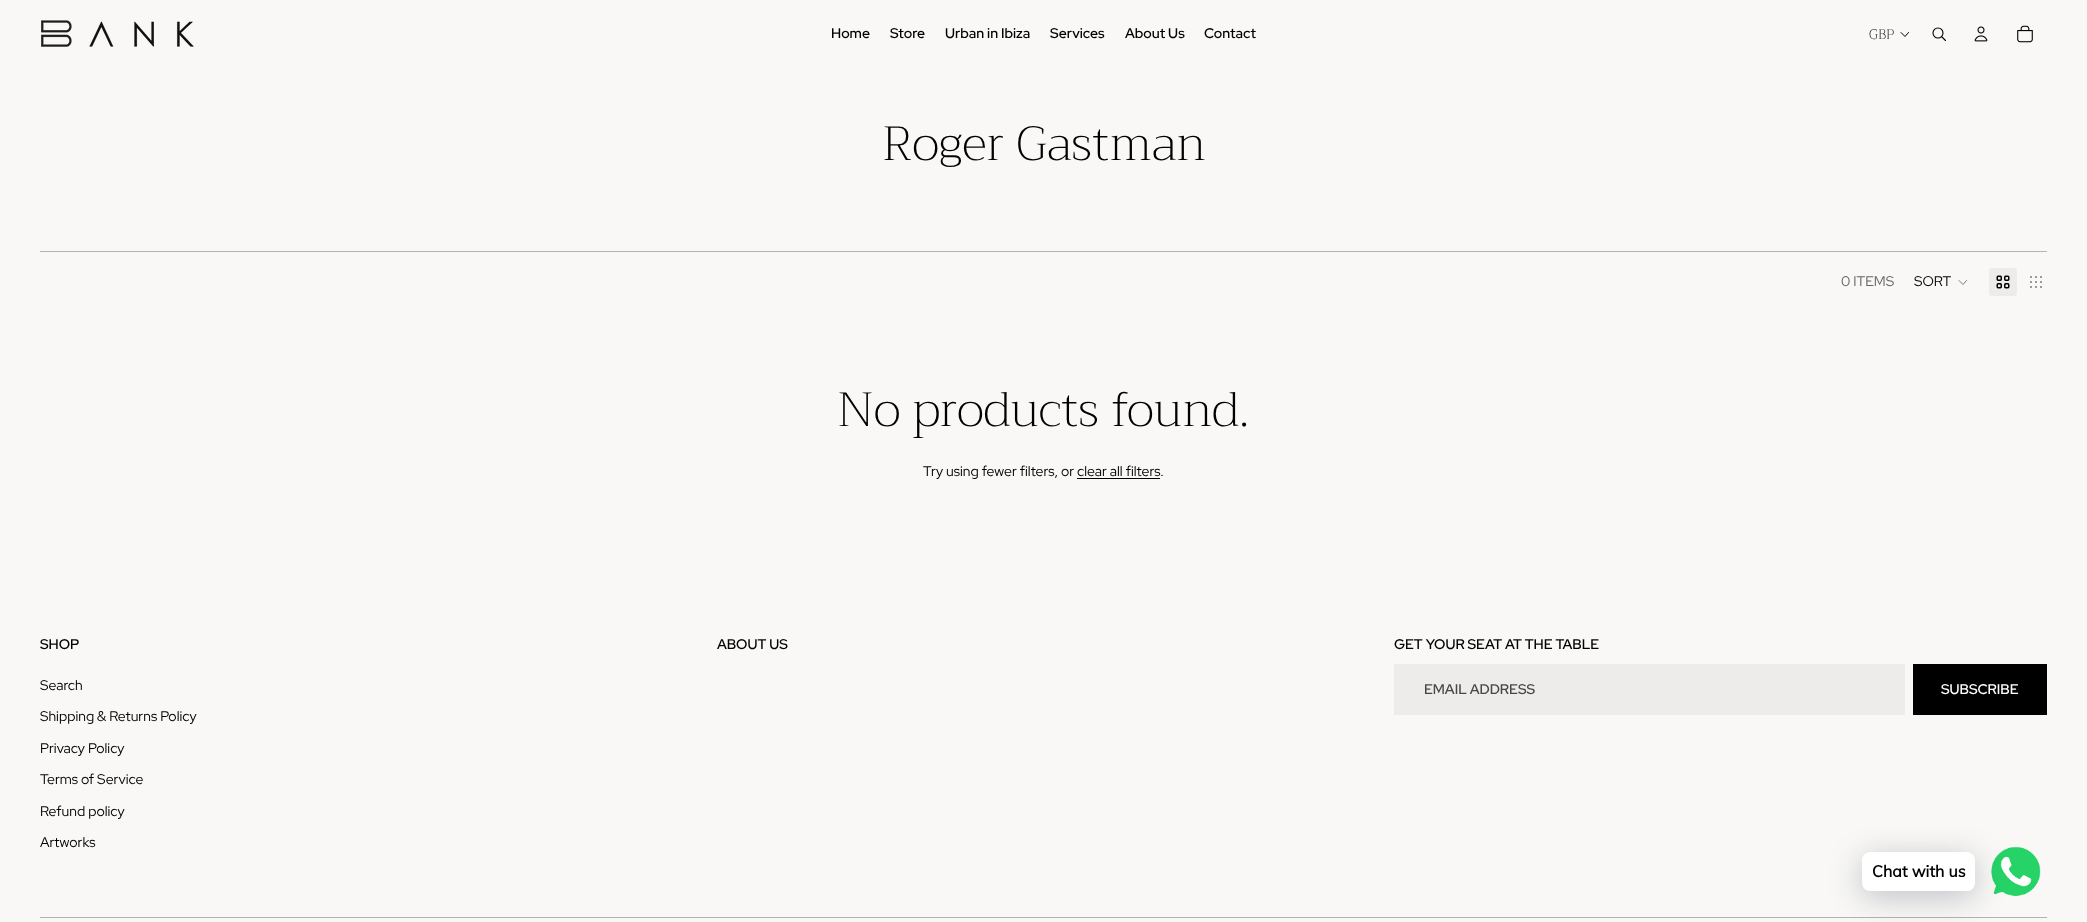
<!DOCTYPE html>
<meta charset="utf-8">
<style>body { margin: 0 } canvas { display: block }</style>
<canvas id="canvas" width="2087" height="922"></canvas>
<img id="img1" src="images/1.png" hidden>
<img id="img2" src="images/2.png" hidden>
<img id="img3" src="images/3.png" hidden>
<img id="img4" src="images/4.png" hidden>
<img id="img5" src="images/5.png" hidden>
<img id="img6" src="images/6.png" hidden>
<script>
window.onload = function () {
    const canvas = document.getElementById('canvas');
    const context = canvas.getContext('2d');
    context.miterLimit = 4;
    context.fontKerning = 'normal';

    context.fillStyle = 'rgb(249, 248, 246)';
    context.fillRect(0, 0, 2087, 922);
    context.drawImage(document.getElementById('img1'), 41, 20, 153, 27);
    context.beginPath();
    context.moveTo(1908.5, 32.5);
    context.lineTo(1905, 36.5);
    context.lineTo(1901, 32.5);
    context.strokeStyle = 'rgb(0, 0, 0)';
    context.lineCap = 'round';
    context.lineJoin = 'round';
    context.stroke();
    context.beginPath();
    context.arc(1938, 33, 5, 0, 2 * Math.PI);
    context.lineWidth = 1.1;
    context.stroke();
    context.beginPath();
    context.moveTo(1942, 37);
    context.lineTo(1945.5, 40.5);
    context.stroke();
    context.drawImage(document.getElementById('img2'), 1974, 26, 14, 16);
    context.drawImage(document.getElementById('img3'), 2017, 25, 16, 18);
    context.fillStyle = 'rgb(179, 179, 177)';
    context.beginPath();
    context.moveTo(2047, 251);
    context.lineTo(2047, 252);
    context.lineTo(2046, 251);
    context.closePath();
    context.fill();
    context.fillStyle = 'rgba(0, 0, 0, 0.28)';
    context.beginPath();
    context.moveTo(2047, 252);
    context.lineTo(40, 252);
    context.lineTo(40, 251);
    context.lineTo(2046, 251);
    context.closePath();
    context.fill();
    context.beginPath();
    context.moveTo(1966.5, 280.5);
    context.lineTo(1963, 284.5);
    context.lineTo(1959, 280.5);
    context.strokeStyle = 'rgb(125, 124, 123)';
    context.lineWidth = 1;
    context.stroke();
    context.fillStyle = 'rgb(237, 236, 234)';
    context.beginPath();
    context.roundRect(1989, 268, 28, 28, 3);
    context.fill();
    context.drawImage(document.getElementById('img4'), 1996, 275, 14, 14);
    context.drawImage(document.getElementById('img5'), 2030, 276, 12, 12);
    context.fillStyle = 'rgb(0, 0, 0)';
    context.fillRect(1077, 478, 83, 1);
    context.fillStyle = 'rgb(237, 236, 234)';
    context.fillRect(1394, 664, 511, 51);
    context.fillStyle = 'rgb(0, 0, 0)';
    context.fillRect(1913, 664, 134, 51);
    context.drawImage(document.getElementById('img6'), 1991, 846, 50, 50);
    context.fillStyle = 'rgb(179, 179, 177)';
    context.fillRect(40, 917, 2007, 1);
    context.fillStyle = 'rgba(0, 18, 46, 0.24)';
    context.filter = 'blur(16px)';
    context.beginPath();
    context.roundRect(1862, 858, 113, 39, 8);
    context.fill();
    context.filter = 'none';
    context.fillStyle = 'rgb(255, 255, 255)';
    context.beginPath();
    context.roundRect(1862, 852, 113, 39, 8);
    context.fill();
    context.font = '600 14px Red Hat Display';
    context.fillStyle = 'rgb(0, 0, 0)';
    context.fillText('Home', 831, 38);
    context.fillText('Store', 890, 38);
    context.fillText('Urban in Ibiza', 945, 38);
    context.fillText('Services', 1050, 38);
    context.fillText('About Us', 1125, 38);
    context.fillText('Contact', 1204, 38);
    context.font = '300 14px Trirong';
    context.fillText('GBP', 1869, 39);
    context.font = '300 48px Trirong';
    context.fillText('Roger Gastman', 882, 160);
    context.font = '14px Red Hat Display';
    context.fillStyle = 'rgb(100, 99, 98)';
    context.fillText('0 ITEMS', 1841, 286);
    context.fillStyle = 'rgb(0, 0, 0)';
    context.fillText('SORT', 1914, 286);
    context.font = '300 48px Trirong';
    context.fillText('No products found.', 837, 426);
    context.font = '14px Red Hat Display';
    context.fillText('Try using fewer filters, or clear all filters.', 923, 476);
    context.font = '600 14px Red Hat Display';
    context.fillText('SHOP', 40, 649);
    context.font = '14px Red Hat Display';
    context.fillText('Search', 40, 690);
    context.fillText('Shipping & Returns Policy', 40, 721);
    context.fillText('Privacy Policy', 40, 753);
    context.fillText('Terms of Service', 40, 784);
    context.fillText('Refund policy', 40, 816);
    context.fillText('Artworks', 40, 847);
    context.font = '600 14px Red Hat Display';
    context.fillText('ABOUT US', 717, 649);
    context.fillText('GET YOUR SEAT AT THE TABLE', 1394, 649);
    context.fillStyle = 'rgb(71, 71, 70)';
    context.fillText('EMAIL ADDRESS', 1424, 694);
    context.fillStyle = 'rgb(255, 255, 255)';
    context.fillText('SUBSCRIBE', 1941, 694);
    context.font = 'bold 16px Muli';
    context.fillStyle = 'rgb(0, 0, 0)';
    context.fillText('Chat with us', 1872, 877);
};
</script>
